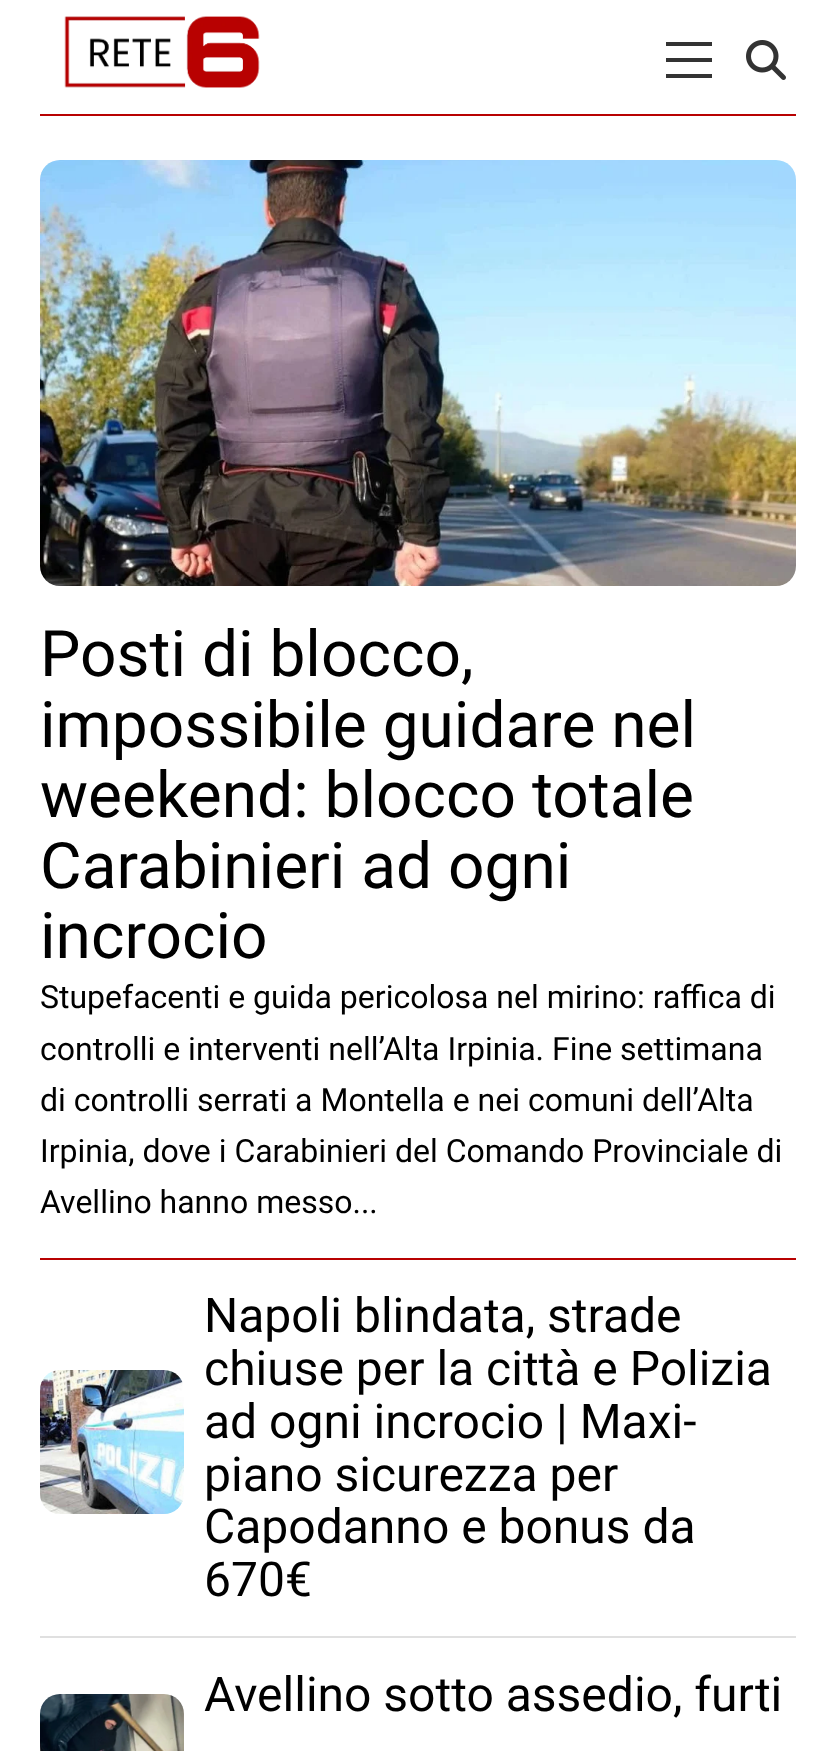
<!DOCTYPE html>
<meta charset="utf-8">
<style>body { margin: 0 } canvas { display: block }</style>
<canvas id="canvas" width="835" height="1751"></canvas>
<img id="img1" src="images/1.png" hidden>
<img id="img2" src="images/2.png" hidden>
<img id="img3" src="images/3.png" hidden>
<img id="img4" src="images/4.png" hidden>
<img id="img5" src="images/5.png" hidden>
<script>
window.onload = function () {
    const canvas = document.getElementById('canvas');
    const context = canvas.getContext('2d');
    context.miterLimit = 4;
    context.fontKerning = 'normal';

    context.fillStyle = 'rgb(255, 255, 255)';
    context.fillRect(0, 0, 835, 1751);
    context.fillStyle = 'rgb(184, 1, 1)';
    context.fillRect(40, 114, 756, 2);
    context.drawImage(document.getElementById('img1'), 64, 16, 196, 72);
    context.fillStyle = 'rgb(51, 51, 51)';
    context.fillRect(666, 58, 46, 4);
    context.fillRect(666, 42, 46, 4);
    context.fillRect(666, 74, 46, 4);
    context.drawImage(document.getElementById('img2'), 746, 40, 40, 40);
    context.drawImage(document.getElementById('img3'), 40, 160, 756, 426);
    context.fillStyle = 'rgb(184, 1, 1)';
    context.fillRect(40, 1258, 756, 2);
    context.drawImage(document.getElementById('img4'), 40, 1370, 144, 144);
    context.fillStyle = 'rgb(224, 224, 224)';
    context.fillRect(40, 1636, 756, 2);
    context.drawImage(document.getElementById('img5'), 40, 1694, 144, 57);
    context.font = '64px Roboto';
    context.fillStyle = 'rgb(0, 0, 0)';
    context.fillText('Posti di blocco,', 40, 676);
    context.fillText('impossibile guidare nel', 40, 747);
    context.fillText('weekend: blocco totale', 40, 817);
    context.fillText('Carabinieri ad ogni', 40, 888);
    context.fillText('incrocio', 40, 958);
    context.font = '32px Roboto';
    context.fillText('Stupefacenti e guida pericolosa nel mirino: raffica di', 40, 1008);
    context.fillText('controlli e interventi nell’Alta Irpinia. Fine settimana', 40, 1060);
    context.fillText('di controlli serrati a Montella e nei comuni dell’Alta', 40, 1111);
    context.fillText('Irpinia, dove i Carabinieri del Comando Provinciale di', 40, 1162);
    context.fillText('Avellino hanno messo...', 40, 1213);
    context.font = '48px Roboto';
    context.fillText('Napoli blindata, strade', 204, 1332);
    context.fillText('chiuse per la città e Polizia', 204, 1385);
    context.fillText('ad ogni incrocio | Maxi-', 204, 1438);
    context.fillText('piano sicurezza per', 204, 1491);
    context.fillText('Capodanno e bonus da', 204, 1543);
    context.fillText('670€', 204, 1596);
    context.fillText('Avellino sotto assedio, furti', 204, 1711);
};
</script>
